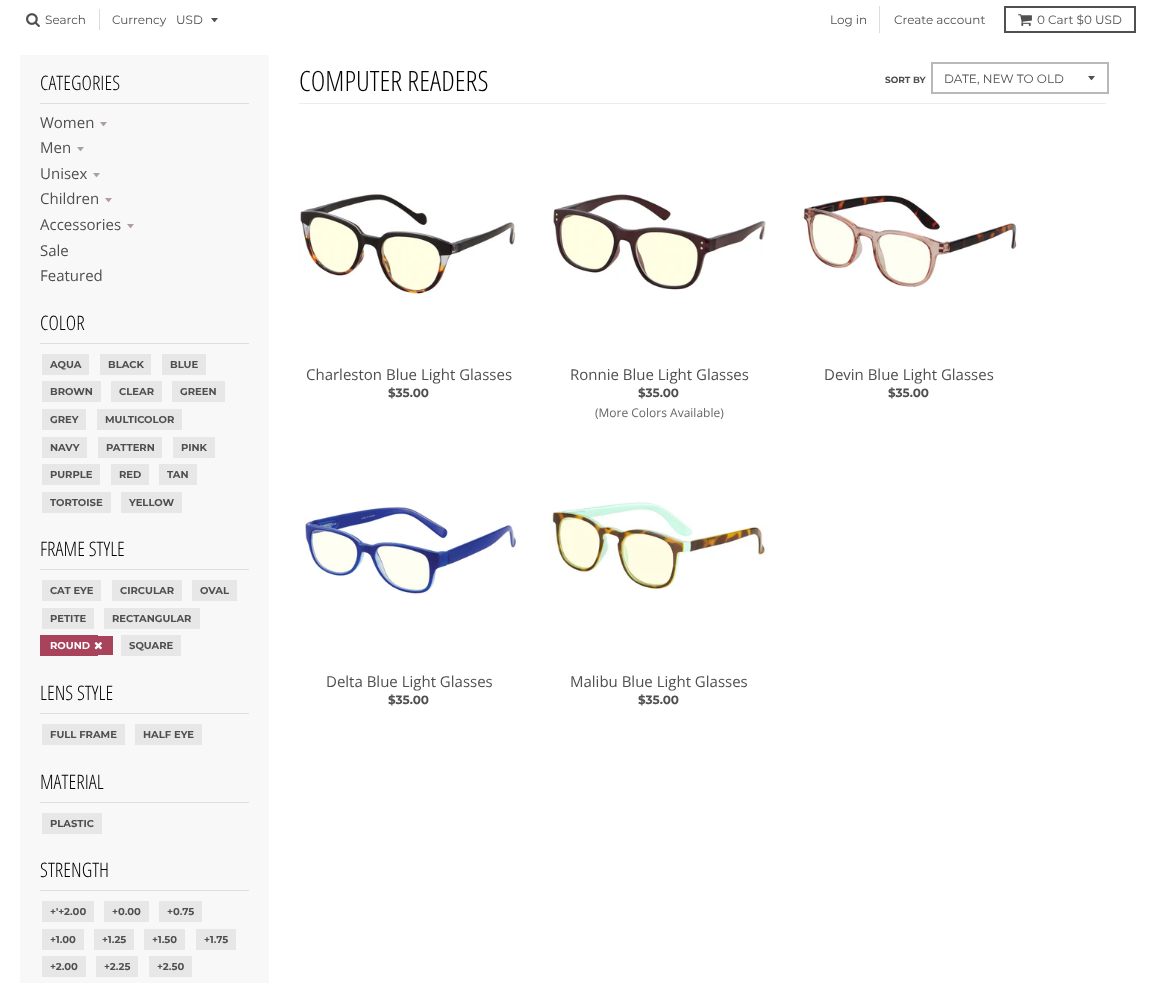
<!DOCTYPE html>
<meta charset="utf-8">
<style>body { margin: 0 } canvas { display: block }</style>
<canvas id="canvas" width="1156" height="983"></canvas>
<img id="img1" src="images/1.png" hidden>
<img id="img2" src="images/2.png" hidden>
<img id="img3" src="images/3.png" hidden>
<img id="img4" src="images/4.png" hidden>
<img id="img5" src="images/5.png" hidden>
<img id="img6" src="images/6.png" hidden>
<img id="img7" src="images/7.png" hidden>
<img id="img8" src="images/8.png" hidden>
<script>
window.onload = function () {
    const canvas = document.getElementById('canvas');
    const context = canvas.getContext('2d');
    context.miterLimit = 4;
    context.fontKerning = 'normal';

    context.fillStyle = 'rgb(255, 255, 255)';
    context.fillRect(0, 0, 1156, 983);
    context.drawImage(document.getElementById('img1'), 26, 13, 14, 15);
    context.fillStyle = 'rgb(220, 220, 220)';
    context.fillRect(99, 9, 1, 21);
    context.fillStyle = 'rgb(80, 80, 80)';
    context.beginPath();
    context.moveTo(211, 18);
    context.bezierCurveTo(215.5, 23.5, 213.5, 23.5, 218, 18);
    context.closePath();
    context.fill();
    context.fillStyle = 'rgb(220, 220, 220)';
    context.fillRect(879, 6, 1, 27);
    context.strokeStyle = 'rgb(80, 80, 80)';
    context.lineWidth = 2;
    context.strokeRect(1005, 7, 130, 25);
    context.drawImage(document.getElementById('img2'), 1018, 14, 14, 12);
    context.fillStyle = 'rgb(248, 248, 248)';
    context.fillRect(20, 55, 249, 928);
    context.fillStyle = 'rgb(223, 223, 223)';
    context.fillRect(40, 103, 209, 1);
    context.fillStyle = 'rgb(174, 158, 162)';
    context.beginPath();
    context.moveTo(100, 122);
    context.bezierCurveTo(104.5, 127.5, 102.5, 127.5, 107, 122);
    context.closePath();
    context.fill();
    context.beginPath();
    context.moveTo(77, 147);
    context.bezierCurveTo(81.5, 152.5, 79.5, 152.5, 84, 147);
    context.closePath();
    context.fill();
    context.beginPath();
    context.moveTo(93, 173);
    context.bezierCurveTo(97.5, 178.5, 95.5, 178.5, 100, 173);
    context.closePath();
    context.fill();
    context.beginPath();
    context.moveTo(105, 198);
    context.bezierCurveTo(109.5, 203.5, 107.5, 203.5, 112, 198);
    context.closePath();
    context.fill();
    context.beginPath();
    context.moveTo(127, 224);
    context.bezierCurveTo(131.5, 229.5, 129.5, 229.5, 134, 224);
    context.closePath();
    context.fill();
    context.fillStyle = 'rgb(223, 223, 223)';
    context.fillRect(40, 343, 209, 1);
    context.fillStyle = 'rgb(231, 231, 231)';
    context.fillRect(42, 354, 6, 21);
    context.fillRect(48, 354, 41, 21);
    context.fillRect(100, 354, 6, 21);
    context.fillRect(106, 354, 45, 21);
    context.fillRect(162, 354, 6, 21);
    context.fillRect(168, 354, 38, 21);
    context.fillRect(42, 381, 6, 21);
    context.fillRect(48, 381, 53, 21);
    context.fillRect(111, 381, 6, 21);
    context.fillRect(117, 381, 45, 21);
    context.fillRect(172, 381, 6, 21);
    context.fillRect(178, 381, 47, 21);
    context.fillRect(42, 409, 6, 21);
    context.fillRect(48, 409, 38, 21);
    context.fillRect(97, 409, 6, 21);
    context.fillRect(103, 409, 79, 21);
    context.fillRect(42, 437, 6, 21);
    context.fillRect(48, 437, 39, 21);
    context.fillRect(98, 437, 6, 21);
    context.fillRect(104, 437, 58, 21);
    context.fillRect(173, 437, 6, 21);
    context.fillRect(179, 437, 36, 21);
    context.fillRect(42, 464, 6, 21);
    context.fillRect(48, 464, 52, 21);
    context.fillRect(111, 464, 6, 21);
    context.fillRect(117, 464, 32, 21);
    context.fillRect(159, 464, 6, 21);
    context.fillRect(165, 464, 32, 21);
    context.fillRect(42, 492, 6, 21);
    context.fillRect(48, 492, 63, 21);
    context.fillRect(121, 492, 6, 21);
    context.fillRect(127, 492, 55, 21);
    context.fillStyle = 'rgb(223, 223, 223)';
    context.fillRect(40, 569, 209, 1);
    context.fillStyle = 'rgb(231, 231, 231)';
    context.fillRect(42, 580, 6, 21);
    context.fillRect(48, 580, 53, 21);
    context.fillRect(112, 580, 6, 21);
    context.fillRect(118, 580, 64, 21);
    context.fillRect(192, 580, 6, 21);
    context.fillRect(198, 580, 39, 21);
    context.fillRect(42, 608, 6, 21);
    context.fillRect(48, 608, 46, 21);
    context.fillRect(104, 608, 6, 21);
    context.fillRect(110, 608, 90, 21);
    context.fillStyle = 'rgb(169, 67, 91)';
    context.fillRect(40, 635, 8, 21);
    context.fillRect(48, 635, 50, 21);
    context.fillRect(98, 636, 15, 19);
    context.drawImage(document.getElementById('img3'), 94, 642, 8, 8);
    context.fillStyle = 'rgb(231, 231, 231)';
    context.fillRect(121, 635, 6, 21);
    context.fillRect(127, 635, 54, 21);
    context.fillStyle = 'rgb(223, 223, 223)';
    context.fillRect(40, 713, 209, 1);
    context.fillStyle = 'rgb(231, 231, 231)';
    context.fillRect(42, 724, 6, 21);
    context.fillRect(48, 724, 77, 21);
    context.fillRect(135, 724, 6, 21);
    context.fillRect(141, 724, 61, 21);
    context.fillStyle = 'rgb(223, 223, 223)';
    context.fillRect(40, 802, 209, 1);
    context.fillStyle = 'rgb(231, 231, 231)';
    context.fillRect(42, 813, 6, 21);
    context.fillRect(48, 813, 54, 21);
    context.fillStyle = 'rgb(223, 223, 223)';
    context.fillRect(40, 890, 209, 1);
    context.fillStyle = 'rgb(231, 231, 231)';
    context.fillRect(42, 901, 6, 21);
    context.fillRect(48, 901, 46, 21);
    context.fillRect(104, 901, 6, 21);
    context.fillRect(110, 901, 39, 21);
    context.fillRect(159, 901, 6, 21);
    context.fillRect(165, 901, 37, 21);
    context.fillRect(42, 929, 6, 21);
    context.fillRect(48, 929, 36, 21);
    context.fillRect(94, 929, 6, 21);
    context.fillRect(100, 929, 34, 21);
    context.fillRect(144, 929, 6, 21);
    context.fillRect(150, 929, 35, 21);
    context.fillRect(196, 929, 6, 21);
    context.fillRect(202, 929, 34, 21);
    context.fillRect(42, 956, 6, 21);
    context.fillRect(48, 956, 38, 21);
    context.fillRect(96, 956, 6, 21);
    context.fillRect(102, 956, 36, 21);
    context.fillRect(149, 956, 6, 21);
    context.fillRect(155, 956, 37, 21);
    context.fillStyle = 'rgb(237, 237, 237)';
    context.fillRect(299, 103, 807, 1);
    context.fillStyle = 'rgb(79, 79, 79)';
    context.beginPath();
    context.moveTo(1088, 76);
    context.bezierCurveTo(1092.5, 81.5, 1090.5, 81.5, 1095, 76);
    context.closePath();
    context.fill();
    context.strokeStyle = 'rgb(184, 184, 184)';
    context.strokeRect(932, 63, 176, 30);
    context.drawImage(document.getElementById('img4'), 299, 194, 218, 101);
    context.drawImage(document.getElementById('img5'), 553, 194, 213, 96);
    context.drawImage(document.getElementById('img6'), 802, 194, 217, 94);
    context.drawImage(document.getElementById('img7'), 305, 506, 214, 89);
    context.drawImage(document.getElementById('img8'), 549, 501, 220, 89);
    context.font = '12px Montserrat';
    context.fillText('Search', 45, 24);
    context.fillText('Currency', 112, 24);
    context.fillText('USD', 176, 24);
    context.fillText('Log in', 830, 24);
    context.fillText('Create account', 894, 24);
    context.fillText('0 Cart $0 USD', 1037, 24);
    context.font = '300 20px Open Sans Condensed';
    context.fillStyle = 'rgb(0, 0, 0)';
    context.fillText('CATEGORIES', 40, 90);
    context.font = '15px Open Sans';
    context.fillStyle = 'rgb(79, 79, 79)';
    context.fillText('Women', 40, 128);
    context.fillText('Men', 40, 153);
    context.fillText('Unisex', 40, 179);
    context.fillText('Children', 40, 204);
    context.fillText('Accessories', 40, 230);
    context.fillText('Sale', 40, 256);
    context.fillText('Featured', 40, 281);
    context.font = '300 20px Open Sans Condensed';
    context.fillStyle = 'rgb(0, 0, 0)';
    context.fillText('COLOR', 40, 330);
    context.font = 'bold 10px Montserrat';
    context.fillStyle = 'rgb(79, 79, 79)';
    context.fillText('AQUA', 50, 368);
    context.fillText('BLACK', 108, 368);
    context.fillText('BLUE', 170, 368);
    context.fillText('BROWN', 50, 395);
    context.fillText('CLEAR', 119, 395);
    context.fillText('GREEN', 180, 395);
    context.fillText('GREY', 50, 423);
    context.fillText('MULTICOLOR', 105, 423);
    context.fillText('NAVY', 50, 451);
    context.fillText('PATTERN', 106, 451);
    context.fillText('PINK', 181, 451);
    context.fillText('PURPLE', 50, 478);
    context.fillText('RED', 119, 478);
    context.fillText('TAN', 167, 478);
    context.fillText('TORTOISE', 50, 506);
    context.fillText('YELLOW', 129, 506);
    context.font = '300 20px Open Sans Condensed';
    context.fillStyle = 'rgb(0, 0, 0)';
    context.fillText('FRAME STYLE', 40, 556);
    context.font = 'bold 10px Montserrat';
    context.fillStyle = 'rgb(79, 79, 79)';
    context.fillText('CAT EYE', 50, 594);
    context.fillText('CIRCULAR', 120, 594);
    context.fillText('OVAL', 200, 594);
    context.fillText('PETITE', 50, 622);
    context.fillText('RECTANGULAR', 112, 622);
    context.fillStyle = 'rgb(255, 255, 255)';
    context.fillText('ROUND', 50, 649);
    context.fillStyle = 'rgb(79, 79, 79)';
    context.fillText('SQUARE', 129, 649);
    context.font = '300 20px Open Sans Condensed';
    context.fillStyle = 'rgb(0, 0, 0)';
    context.fillText('LENS STYLE', 40, 700);
    context.font = 'bold 10px Montserrat';
    context.fillStyle = 'rgb(79, 79, 79)';
    context.fillText('FULL FRAME', 50, 738);
    context.fillText('HALF EYE', 143, 738);
    context.font = '300 20px Open Sans Condensed';
    context.fillStyle = 'rgb(0, 0, 0)';
    context.fillText('MATERIAL', 40, 789);
    context.font = 'bold 10px Montserrat';
    context.fillStyle = 'rgb(79, 79, 79)';
    context.fillText('PLASTIC', 50, 827);
    context.font = '300 20px Open Sans Condensed';
    context.fillStyle = 'rgb(0, 0, 0)';
    context.fillText('STRENGTH', 40, 877);
    context.font = 'bold 10px Montserrat';
    context.fillStyle = 'rgb(79, 79, 79)';
    context.fillText('+\'+2.00', 50, 915);
    context.fillText('+0.00', 112, 915);
    context.fillText('+0.75', 167, 915);
    context.fillText('+1.00', 50, 943);
    context.fillText('+1.25', 102, 943);
    context.fillText('+1.50', 152, 943);
    context.fillText('+1.75', 204, 943);
    context.fillText('+2.00', 50, 970);
    context.fillText('+2.25', 104, 970);
    context.fillText('+2.50', 157, 970);
    context.font = '300 28px Open Sans Condensed';
    context.fillStyle = 'rgb(0, 0, 0)';
    context.fillText('COMPUTER READERS', 299, 91);
    context.font = 'bold 9px Montserrat';
    context.fillStyle = 'rgb(79, 79, 79)';
    context.fillText('SORT BY', 885, 83);
    context.font = '12px Montserrat';
    context.fillText('DATE, NEW TO OLD', 944, 83);
    context.font = '15px Open Sans';
    context.fillText('Charleston Blue Light Glasses', 306, 380);
    context.font = 'bold 12px Montserrat';
    context.fillText('$35.00', 388, 397);
    context.font = '15px Open Sans';
    context.fillText('Ronnie Blue Light Glasses', 570, 380);
    context.font = 'bold 12px Montserrat';
    context.fillText('$35.00', 638, 397);
    context.font = '12px Open Sans';
    context.fillStyle = 'rgb(102, 102, 102)';
    context.fillText('(More Colors Available)', 595, 417);
    context.font = '15px Open Sans';
    context.fillStyle = 'rgb(79, 79, 79)';
    context.fillText('Devin Blue Light Glasses', 824, 380);
    context.font = 'bold 12px Montserrat';
    context.fillText('$35.00', 888, 397);
    context.font = '15px Open Sans';
    context.fillText('Delta Blue Light Glasses', 326, 687);
    context.font = 'bold 12px Montserrat';
    context.fillText('$35.00', 388, 704);
    context.font = '15px Open Sans';
    context.fillText('Malibu Blue Light Glasses', 570, 687);
    context.font = 'bold 12px Montserrat';
    context.fillText('$35.00', 638, 704);
};
</script>
